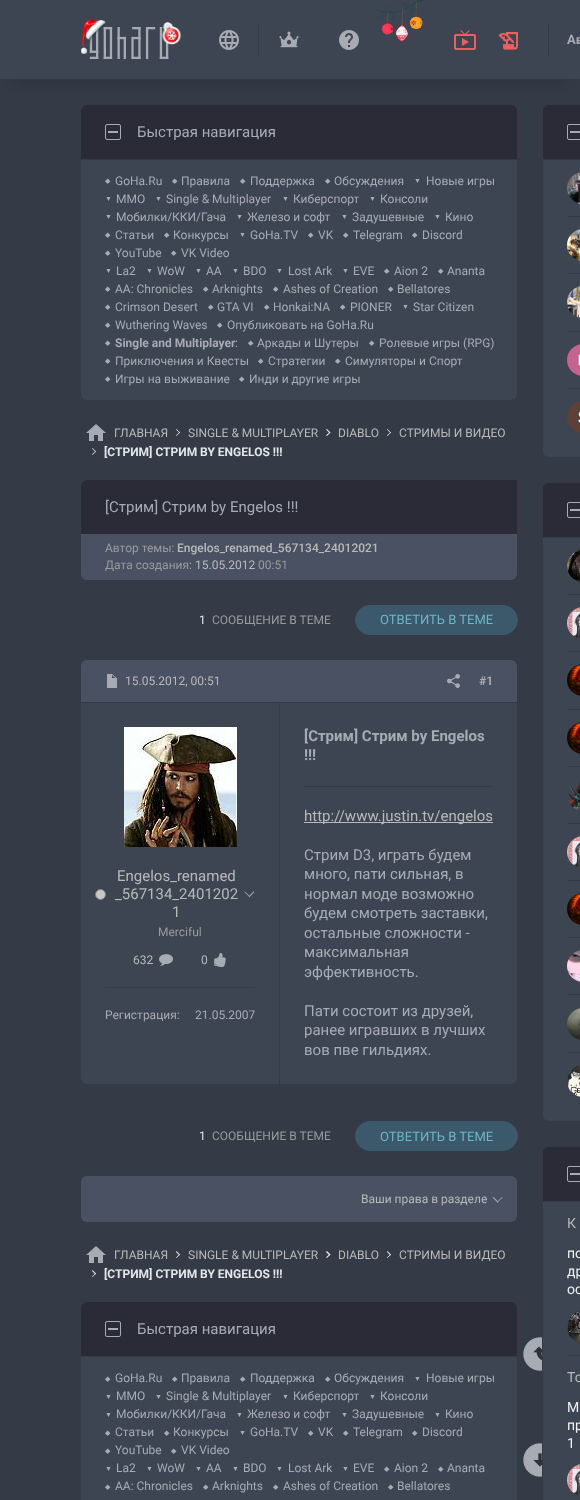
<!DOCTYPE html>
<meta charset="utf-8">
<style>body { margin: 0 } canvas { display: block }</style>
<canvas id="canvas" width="580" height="1500"></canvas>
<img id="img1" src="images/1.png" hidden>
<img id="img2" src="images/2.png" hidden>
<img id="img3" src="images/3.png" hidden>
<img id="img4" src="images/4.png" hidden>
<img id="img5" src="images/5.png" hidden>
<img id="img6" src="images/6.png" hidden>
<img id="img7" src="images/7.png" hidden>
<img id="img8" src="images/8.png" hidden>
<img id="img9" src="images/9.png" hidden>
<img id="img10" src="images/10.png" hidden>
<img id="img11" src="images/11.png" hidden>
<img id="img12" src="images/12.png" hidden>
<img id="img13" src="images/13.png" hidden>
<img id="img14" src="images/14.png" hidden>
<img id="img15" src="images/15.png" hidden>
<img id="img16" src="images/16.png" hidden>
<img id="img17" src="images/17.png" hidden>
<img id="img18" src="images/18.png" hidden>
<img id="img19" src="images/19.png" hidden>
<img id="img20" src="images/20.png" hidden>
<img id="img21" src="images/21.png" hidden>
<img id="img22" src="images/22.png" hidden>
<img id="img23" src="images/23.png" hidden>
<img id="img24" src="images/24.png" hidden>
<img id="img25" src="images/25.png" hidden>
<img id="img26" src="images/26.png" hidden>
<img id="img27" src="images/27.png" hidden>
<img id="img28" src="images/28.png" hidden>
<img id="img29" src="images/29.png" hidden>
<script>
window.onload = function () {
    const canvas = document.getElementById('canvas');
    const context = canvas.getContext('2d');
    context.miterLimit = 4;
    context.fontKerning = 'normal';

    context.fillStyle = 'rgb(52, 58, 70)';
    context.fillRect(0, 0, 580, 1500);
    context.fillStyle = 'rgba(0, 0, 0, 0.15)';
    context.filter = 'blur(7.5px)';
    context.beginPath();
    context.rect(15, 30, 550, 50);
    context.fill();
    context.filter = 'none';
    context.fillStyle = 'rgb(61, 69, 82)';
    context.fillRect(0, 0, 580, 79);
    context.fillStyle = 'rgb(51, 59, 70)';
    context.fillRect(12, 79, 556, 1);
    context.drawImage(document.getElementById('img1'), 81, 20, 100, 39);
    context.drawImage(document.getElementById('img2'), 219, 30, 20, 20);
    context.fillRect(258, 25, 1, 30);
    context.drawImage(document.getElementById('img3'), 279, 31, 20, 17);
    context.drawImage(document.getElementById('img4'), 339, 30, 20, 20);
    context.drawImage(document.getElementById('img5'), 376, 0, 50, 42);
    context.drawImage(document.getElementById('img6'), 454, 30, 22, 20);
    context.drawImage(document.getElementById('img7'), 498, 32, 20, 18);
    context.fillRect(548, 25, 1, 30);
    context.fillStyle = 'rgb(43, 43, 55)';
    context.beginPath();
    context.roundRect(81, 105, 436, 54, [6, 6, 0, 0]);
    context.fill();
    context.beginPath();
    context.roundRect(105.5, 124.5, 15, 15, 1.5);
    context.strokeStyle = 'rgb(167, 171, 180)';
    context.stroke();
    context.fillStyle = 'rgb(167, 171, 180)';
    context.fillRect(108, 131, 10, 2);
    context.fillStyle = 'rgb(61, 69, 82)';
    context.beginPath();
    context.roundRect(81, 160, 436, 240, [0, 0, 6, 6]);
    context.fill();
    context.drawImage(document.getElementById('img8'), 86, 424, 20, 17);
    context.fillStyle = 'rgb(229, 230, 234)';
    context.beginPath();
    context.moveTo(176.5, 429);
    context.lineTo(180, 432.5);
    context.lineTo(179.5, 433);
    context.lineTo(176, 429.5);
    context.closePath();
    context.fill();
    context.beginPath();
    context.moveTo(179.5, 432);
    context.lineTo(180, 432.5);
    context.lineTo(176.5, 436);
    context.lineTo(176, 435.5);
    context.closePath();
    context.fill();
    context.beginPath();
    context.moveTo(327, 429);
    context.lineTo(330.5, 432.5);
    context.lineTo(329.5, 433);
    context.lineTo(326, 429.5);
    context.closePath();
    context.fill();
    context.beginPath();
    context.moveTo(329.5, 432);
    context.lineTo(330.5, 432.5);
    context.lineTo(327, 436);
    context.lineTo(326, 435.5);
    context.closePath();
    context.fill();
    context.beginPath();
    context.moveTo(387.5, 429);
    context.lineTo(391, 432.5);
    context.lineTo(390.5, 433);
    context.lineTo(387, 429.5);
    context.closePath();
    context.fill();
    context.beginPath();
    context.moveTo(390.5, 432);
    context.lineTo(391, 432.5);
    context.lineTo(387.5, 436);
    context.lineTo(387, 435.5);
    context.closePath();
    context.fill();
    context.beginPath();
    context.moveTo(92.5, 448);
    context.lineTo(96, 451.5);
    context.lineTo(95.5, 452);
    context.lineTo(92, 448.5);
    context.closePath();
    context.fill();
    context.beginPath();
    context.moveTo(95.5, 451);
    context.lineTo(96, 451.5);
    context.lineTo(92.5, 455);
    context.lineTo(92, 454.5);
    context.closePath();
    context.fill();
    context.fillStyle = 'rgb(43, 43, 55)';
    context.beginPath();
    context.roundRect(81, 480, 436, 54, [6, 0, 0, 0]);
    context.fill();
    context.fillStyle = 'rgb(73, 81, 98)';
    context.beginPath();
    context.roundRect(81, 534, 436, 46, [0, 0, 6, 6]);
    context.fill();
    context.fillStyle = 'rgb(60, 88, 107)';
    context.beginPath();
    context.roundRect(355.5, 605.5, 162, 29, 14.5);
    context.fill();
    context.strokeStyle = 'rgb(60, 88, 107)';
    context.stroke();
    context.fillStyle = 'rgb(73, 81, 98)';
    context.beginPath();
    context.roundRect(81, 660, 436, 42, [6, 6, 0, 0]);
    context.fill();
    context.drawImage(document.getElementById('img9'), 107, 674, 10, 14);
    context.drawImage(document.getElementById('img10'), 447, 674, 13, 14);
    context.fillStyle = 'rgb(61, 69, 82)';
    context.beginPath();
    context.roundRect(81, 703, 199, 381, [0, 0, 0, 6]);
    context.fill();
    context.fillStyle = 'rgb(51, 59, 70)';
    context.fillRect(279, 703, 1, 381);
    context.drawImage(document.getElementById('img11'), 124, 727, 113, 120);
    context.fillStyle = 'rgb(200, 200, 200)';
    context.beginPath();
    context.arc(100.5, 894.5, 5, 0, 2 * Math.PI);
    context.fill();
    context.strokeStyle = 'rgb(126, 126, 126)';
    context.stroke();
    context.fillStyle = 'rgb(167, 171, 180)';
    context.beginPath();
    context.moveTo(253.5, 891.5);
    context.lineTo(254.5, 892);
    context.lineTo(249.5, 897);
    context.lineTo(248.5, 896.5);
    context.closePath();
    context.fill();
    context.beginPath();
    context.moveTo(245, 891.5);
    context.lineTo(250, 896.5);
    context.lineTo(249.5, 897);
    context.lineTo(244.5, 892);
    context.closePath();
    context.fill();
    context.drawImage(document.getElementById('img12'), 159, 954, 14, 12);
    context.drawImage(document.getElementById('img13'), 214, 953, 12, 14);
    context.fillStyle = 'rgb(51, 59, 70)';
    context.fillRect(105, 987, 150, 1);
    context.fillStyle = 'rgb(61, 69, 82)';
    context.beginPath();
    context.roundRect(280, 703, 237, 381, [0, 0, 6, 0]);
    context.fill();
    context.fillStyle = 'rgb(51, 59, 70)';
    context.fillRect(304, 786, 189, 1);
    context.fillStyle = 'rgb(185, 185, 185)';
    context.fillRect(304, 822, 189, 1);
    context.fillStyle = 'rgb(60, 88, 107)';
    context.beginPath();
    context.roundRect(355.5, 1121.5, 162, 29, 14.5);
    context.fill();
    context.strokeStyle = 'rgb(60, 88, 107)';
    context.stroke();
    context.fillStyle = 'rgb(73, 81, 98)';
    context.beginPath();
    context.roundRect(81, 1176, 436, 46, 6);
    context.fill();
    context.fillStyle = 'rgb(167, 171, 180)';
    context.beginPath();
    context.moveTo(502, 1197);
    context.lineTo(502.5, 1197.5);
    context.lineTo(497.5, 1202.5);
    context.lineTo(497, 1202);
    context.closePath();
    context.fill();
    context.beginPath();
    context.moveTo(493.5, 1197);
    context.lineTo(498.5, 1202);
    context.lineTo(497.5, 1202.5);
    context.lineTo(492.5, 1197.5);
    context.closePath();
    context.fill();
    context.drawImage(document.getElementById('img8'), 86, 1246, 20, 17);
    context.fillStyle = 'rgb(229, 230, 234)';
    context.beginPath();
    context.moveTo(176.5, 1251);
    context.lineTo(180, 1254.5);
    context.lineTo(179.5, 1255.5);
    context.lineTo(176, 1252);
    context.closePath();
    context.fill();
    context.beginPath();
    context.moveTo(179.5, 1254);
    context.lineTo(180, 1254.5);
    context.lineTo(176.5, 1258);
    context.lineTo(176, 1257.5);
    context.closePath();
    context.fill();
    context.beginPath();
    context.moveTo(327, 1251);
    context.lineTo(330.5, 1254.5);
    context.lineTo(329.5, 1255.5);
    context.lineTo(326, 1252);
    context.closePath();
    context.fill();
    context.beginPath();
    context.moveTo(329.5, 1254);
    context.lineTo(330.5, 1254.5);
    context.lineTo(327, 1258);
    context.lineTo(326, 1257.5);
    context.closePath();
    context.fill();
    context.beginPath();
    context.moveTo(387.5, 1251);
    context.lineTo(391, 1254.5);
    context.lineTo(390.5, 1255.5);
    context.lineTo(387, 1252);
    context.closePath();
    context.fill();
    context.beginPath();
    context.moveTo(390.5, 1254);
    context.lineTo(391, 1254.5);
    context.lineTo(387.5, 1258);
    context.lineTo(387, 1257.5);
    context.closePath();
    context.fill();
    context.beginPath();
    context.moveTo(92.5, 1270);
    context.lineTo(96, 1273.5);
    context.lineTo(95.5, 1274.5);
    context.lineTo(92, 1271);
    context.closePath();
    context.fill();
    context.beginPath();
    context.moveTo(95.5, 1273);
    context.lineTo(96, 1273.5);
    context.lineTo(92.5, 1277);
    context.lineTo(92, 1276.5);
    context.closePath();
    context.fill();
    context.fillStyle = 'rgb(43, 43, 55)';
    context.beginPath();
    context.roundRect(81, 1302, 436, 54, [6, 6, 0, 0]);
    context.fill();
    context.beginPath();
    context.roundRect(105.5, 1321.5, 15, 15, 1.5);
    context.strokeStyle = 'rgb(167, 171, 180)';
    context.stroke();
    context.fillStyle = 'rgb(167, 171, 180)';
    context.fillRect(108, 1328, 10, 2);
    context.fillStyle = 'rgb(61, 69, 82)';
    context.fillRect(81, 1357, 436, 143);
    context.drawImage(document.getElementById('img14'), 523, 1337, 19, 34);
    context.drawImage(document.getElementById('img15'), 523, 1443, 19, 34);
    context.fillStyle = 'rgb(43, 43, 55)';
    context.beginPath();
    context.moveTo(549, 105);
    context.lineTo(580, 105);
    context.bezierCurveTo(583.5, 105, 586, 107.5, 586, 111);
    context.lineTo(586, 159);
    context.lineTo(543, 159);
    context.lineTo(543, 111);
    context.bezierCurveTo(543, 107.5, 545.5, 105, 549, 105);
    context.closePath();
    context.fill();
    context.beginPath();
    context.roundRect(567.5, 124.5, 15, 15, 1.5);
    context.stroke();
    context.fillStyle = 'rgb(167, 171, 180)';
    context.fillRect(570, 131, 10, 2);
    context.fillStyle = 'rgb(61, 69, 82)';
    context.beginPath();
    context.moveTo(543, 160);
    context.lineTo(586, 160);
    context.lineTo(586, 451);
    context.bezierCurveTo(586, 454.5, 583.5, 457, 580, 457);
    context.lineTo(549, 457);
    context.bezierCurveTo(545.5, 457, 543, 454.5, 543, 451);
    context.closePath();
    context.fill();
    context.drawImage(document.getElementById('img16'), 567, 172, 13, 32);
    context.fillStyle = 'rgb(51, 59, 70)';
    context.fillRect(567, 216, 13, 1);
    context.drawImage(document.getElementById('img17'), 567, 229, 13, 32);
    context.fillRect(567, 273, 13, 1);
    context.drawImage(document.getElementById('img18'), 567, 286, 13, 32);
    context.fillRect(567, 331, 13, 1);
    context.drawImage(document.getElementById('img19'), 567, 344, 13, 32);
    context.fillRect(567, 388, 13, 1);
    context.drawImage(document.getElementById('img20'), 567, 401, 13, 32);
    context.fillStyle = 'rgb(43, 43, 55)';
    context.beginPath();
    context.moveTo(549, 483);
    context.lineTo(580, 483);
    context.bezierCurveTo(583.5, 483, 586, 485.5, 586, 489);
    context.lineTo(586, 537);
    context.lineTo(543, 537);
    context.lineTo(543, 489);
    context.bezierCurveTo(543, 485.5, 545.5, 483, 549, 483);
    context.closePath();
    context.fill();
    context.beginPath();
    context.roundRect(567.5, 502.5, 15, 15, 1.5);
    context.stroke();
    context.fillStyle = 'rgb(167, 171, 180)';
    context.fillRect(570, 509, 10, 2);
    context.fillStyle = 'rgb(61, 69, 82)';
    context.beginPath();
    context.moveTo(543, 538);
    context.lineTo(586, 538);
    context.lineTo(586, 1115);
    context.bezierCurveTo(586, 1118.5, 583.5, 1121, 580, 1121);
    context.lineTo(549, 1121);
    context.bezierCurveTo(545.5, 1121, 543, 1118.5, 543, 1115);
    context.closePath();
    context.fill();
    context.drawImage(document.getElementById('img21'), 567, 550, 13, 32);
    context.fillStyle = 'rgb(51, 59, 70)';
    context.fillRect(567, 594, 13, 1);
    context.drawImage(document.getElementById('img22'), 567, 607, 13, 32);
    context.fillRect(567, 651, 13, 1);
    context.drawImage(document.getElementById('img23'), 567, 664, 13, 32);
    context.fillRect(567, 709, 13, 1);
    context.drawImage(document.getElementById('img24'), 567, 722, 13, 32);
    context.fillRect(567, 766, 13, 1);
    context.drawImage(document.getElementById('img25'), 568, 782, 12, 28);
    context.fillRect(567, 823, 13, 1);
    context.drawImage(document.getElementById('img22'), 567, 836, 13, 32);
    context.fillRect(567, 880, 13, 1);
    context.drawImage(document.getElementById('img24'), 567, 893, 13, 32);
    context.fillRect(567, 937, 13, 1);
    context.drawImage(document.getElementById('img26'), 567, 950, 13, 32);
    context.fillRect(567, 994, 13, 1);
    context.drawImage(document.getElementById('img27'), 567, 1008, 13, 32);
    context.fillRect(567, 1052, 13, 1);
    context.drawImage(document.getElementById('img28'), 567, 1065, 13, 32);
    context.fillStyle = 'rgb(43, 43, 55)';
    context.beginPath();
    context.moveTo(549, 1147);
    context.lineTo(580, 1147);
    context.bezierCurveTo(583.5, 1147, 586, 1149.5, 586, 1153);
    context.lineTo(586, 1201);
    context.lineTo(543, 1201);
    context.lineTo(543, 1153);
    context.bezierCurveTo(543, 1149.5, 545.5, 1147, 549, 1147);
    context.closePath();
    context.fill();
    context.beginPath();
    context.roundRect(567.5, 1166.5, 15, 15, 1.5);
    context.stroke();
    context.fillStyle = 'rgb(167, 171, 180)';
    context.fillRect(570, 1173, 10, 2);
    context.fillStyle = 'rgb(61, 69, 82)';
    context.fillRect(543, 1202, 37, 298);
    context.drawImage(document.getElementById('img29'), 567, 1311, 13, 32);
    context.fillStyle = 'rgb(51, 59, 70)';
    context.fillRect(567, 1355, 13, 1);
    context.drawImage(document.getElementById('img22'), 567, 1464, 13, 32);
    context.font = 'bold 13px Roboto';
    context.fillStyle = 'rgb(167, 171, 180)';
    context.fillText('Ав', 567, 44);
    context.font = '15px Roboto';
    context.fillText('Быстрая навигация', 137, 137);
    context.font = '7px DejaVu Sans';
    context.fillText('◆', 105, 183);
    context.font = '12px Roboto';
    context.fillText('GoHa.Ru', 115, 185);
    context.font = '7px DejaVu Sans';
    context.fillText('◆', 172, 183);
    context.font = '12px Roboto';
    context.fillText('Правила', 181, 185);
    context.font = '7px DejaVu Sans';
    context.fillText('◆', 240, 183);
    context.font = '12px Roboto';
    context.fillText('Поддержка', 250, 185);
    context.font = '7px DejaVu Sans';
    context.fillText('◆', 325, 183);
    context.font = '12px Roboto';
    context.fillText('Обсуждения', 334, 185);
    context.font = '7px Liberation Sans';
    context.fillText('▼', 414, 183);
    context.font = '12px Roboto';
    context.fillText('Новые игры', 426, 185);
    context.font = '7px Liberation Sans';
    context.fillText('▼', 105, 201);
    context.font = '12px Roboto';
    context.fillText('MMO', 116, 203);
    context.font = '7px Liberation Sans';
    context.fillText('▼', 155, 201);
    context.font = '12px Roboto';
    context.fillText('Single & Multiplayer', 166, 203);
    context.font = '7px Liberation Sans';
    context.fillText('▼', 282, 201);
    context.font = '12px Roboto';
    context.fillText('Киберспорт', 293, 203);
    context.font = '7px Liberation Sans';
    context.fillText('▼', 369, 201);
    context.font = '12px Roboto';
    context.fillText('Консоли', 380, 203);
    context.font = '7px Liberation Sans';
    context.fillText('▼', 105, 219);
    context.font = '12px Roboto';
    context.fillText('Мобилки/ККИ/Гача', 116, 221);
    context.font = '7px Liberation Sans';
    context.fillText('▼', 236, 219);
    context.font = '12px Roboto';
    context.fillText('Железо и софт', 247, 221);
    context.font = '7px Liberation Sans';
    context.fillText('▼', 341, 219);
    context.font = '12px Roboto';
    context.fillText('Задушевные', 352, 221);
    context.font = '7px Liberation Sans';
    context.fillText('▼', 434, 219);
    context.font = '12px Roboto';
    context.fillText('Кино', 445, 221);
    context.font = '7px DejaVu Sans';
    context.fillText('◆', 105, 237);
    context.font = '12px Roboto';
    context.fillText('Статьи', 115, 239);
    context.font = '7px DejaVu Sans';
    context.fillText('◆', 164, 237);
    context.font = '12px Roboto';
    context.fillText('Конкурсы', 173, 239);
    context.font = '7px Liberation Sans';
    context.fillText('▼', 239, 237);
    context.font = '12px Roboto';
    context.fillText('GoHa.TV', 250, 239);
    context.font = '7px DejaVu Sans';
    context.fillText('◆', 308, 237);
    context.font = '12px Roboto';
    context.fillText('VK', 318, 239);
    context.font = '7px DejaVu Sans';
    context.fillText('◆', 343, 237);
    context.font = '12px Roboto';
    context.fillText('Telegram', 353, 239);
    context.font = '7px DejaVu Sans';
    context.fillText('◆', 412, 237);
    context.font = '12px Roboto';
    context.fillText('Discord', 422, 239);
    context.font = '7px DejaVu Sans';
    context.fillText('◆', 105, 255);
    context.font = '12px Roboto';
    context.fillText('YouTube', 115, 257);
    context.font = '7px DejaVu Sans';
    context.fillText('◆', 171, 255);
    context.font = '12px Roboto';
    context.fillText('VK Video', 181, 257);
    context.font = '7px Liberation Sans';
    context.fillText('▼', 105, 273);
    context.font = '12px Roboto';
    context.fillText('La2', 116, 275);
    context.font = '7px Liberation Sans';
    context.fillText('▼', 146, 273);
    context.font = '12px Roboto';
    context.fillText('WoW', 157, 275);
    context.font = '7px Liberation Sans';
    context.fillText('▼', 195, 273);
    context.font = '12px Roboto';
    context.fillText('AA', 206, 275);
    context.font = '7px Liberation Sans';
    context.fillText('▼', 232, 273);
    context.font = '12px Roboto';
    context.fillText('BDO', 243, 275);
    context.font = '7px Liberation Sans';
    context.fillText('▼', 276, 273);
    context.font = '12px Roboto';
    context.fillText('Lost Ark', 288, 275);
    context.font = '7px Liberation Sans';
    context.fillText('▼', 342, 273);
    context.font = '12px Roboto';
    context.fillText('EVE', 353, 275);
    context.font = '7px DejaVu Sans';
    context.fillText('◆', 384, 273);
    context.font = '12px Roboto';
    context.fillText('Aion 2', 394, 275);
    context.font = '7px DejaVu Sans';
    context.fillText('◆', 438, 273);
    context.font = '12px Roboto';
    context.fillText('Ananta', 447, 275);
    context.font = '7px DejaVu Sans';
    context.fillText('◆', 105, 291);
    context.font = '12px Roboto';
    context.fillText('AA: Chronicles', 115, 293);
    context.font = '7px DejaVu Sans';
    context.fillText('◆', 203, 291);
    context.font = '12px Roboto';
    context.fillText('Arknights', 212, 293);
    context.font = '7px DejaVu Sans';
    context.fillText('◆', 273, 291);
    context.font = '12px Roboto';
    context.fillText('Ashes of Creation', 283, 293);
    context.font = '7px DejaVu Sans';
    context.fillText('◆', 388, 291);
    context.font = '12px Roboto';
    context.fillText('Bellatores', 397, 293);
    context.font = '7px DejaVu Sans';
    context.fillText('◆', 105, 309);
    context.font = '12px Roboto';
    context.fillText('Crimson Desert', 115, 311);
    context.font = '7px DejaVu Sans';
    context.fillText('◆', 208, 309);
    context.font = '12px Roboto';
    context.fillText('GTA VI', 217, 311);
    context.font = '7px DejaVu Sans';
    context.fillText('◆', 264, 309);
    context.font = '12px Roboto';
    context.fillText('Honkai:NA', 273, 311);
    context.font = '7px DejaVu Sans';
    context.fillText('◆', 340, 309);
    context.font = '12px Roboto';
    context.fillText('PIONER', 350, 311);
    context.font = '7px Liberation Sans';
    context.fillText('▼', 402, 309);
    context.font = '12px Roboto';
    context.fillText('Star Citizen', 413, 311);
    context.font = '7px DejaVu Sans';
    context.fillText('◆', 105, 327);
    context.font = '12px Roboto';
    context.fillText('Wuthering Waves', 115, 329);
    context.font = '7px DejaVu Sans';
    context.fillText('◆', 217, 327);
    context.font = '12px Roboto';
    context.fillText('Опубликовать на GoHa.Ru', 227, 329);
    context.font = '7px DejaVu Sans';
    context.fillText('◆', 105, 345);
    context.font = 'bold 12px Roboto';
    context.fillText('Single and Multiplayer', 115, 347);
    context.font = '12px Roboto';
    context.fillText(':', 235, 347);
    context.font = '7px DejaVu Sans';
    context.fillText('◆', 248, 345);
    context.font = '12px Roboto';
    context.fillText('Аркады и Шутеры', 257, 347);
    context.font = '7px DejaVu Sans';
    context.fillText('◆', 369, 345);
    context.font = '12px Roboto';
    context.fillText('Ролевые игры (RPG)', 379, 347);
    context.font = '7px DejaVu Sans';
    context.fillText('◆', 105, 363);
    context.font = '12px Roboto';
    context.fillText('Приключения и Квесты', 115, 365);
    context.font = '7px DejaVu Sans';
    context.fillText('◆', 258, 363);
    context.font = '12px Roboto';
    context.fillText('Стратегии', 268, 365);
    context.font = '7px DejaVu Sans';
    context.fillText('◆', 335, 363);
    context.font = '12px Roboto';
    context.fillText('Симуляторы и Спорт', 345, 365);
    context.font = '7px DejaVu Sans';
    context.fillText('◆', 105, 381);
    context.font = '12px Roboto';
    context.fillText('Игры на выживание', 115, 383);
    context.font = '7px DejaVu Sans';
    context.fillText('◆', 239, 381);
    context.font = '12px Roboto';
    context.fillText('Инди и другие игры', 249, 383);
    context.fillStyle = 'rgb(185, 185, 185)';
    context.fillText('ГЛАВНАЯ', 114, 437);
    context.fillText('SINGLE & MULTIPLAYER', 188, 437);
    context.fillText('DIABLO', 338, 437);
    context.fillText('СТРИМЫ И ВИДЕО', 399, 437);
    context.font = 'bold 12px Roboto';
    context.fillStyle = 'rgb(229, 230, 234)';
    context.fillText('[СТРИМ] СТРИМ BY ENGELOS !!!', 104, 456);
    context.font = '15px Roboto';
    context.fillStyle = 'rgb(167, 171, 180)';
    context.fillText('[Стрим] Стрим by Engelos !!!', 105, 512);
    context.font = '12px Roboto';
    context.fillStyle = 'rgb(155, 154, 157)';
    context.fillText('Автор темы:', 105, 552);
    context.font = '500 12px Roboto';
    context.fillStyle = 'rgb(185, 185, 185)';
    context.fillText('Engelos_renamed_567134_24012021', 177, 552);
    context.font = '12px Roboto';
    context.fillStyle = 'rgb(155, 154, 157)';
    context.fillText('Дата создания:', 105, 569);
    context.fillStyle = 'rgb(185, 185, 185)';
    context.fillText('15.05.2012', 195, 569);
    context.fillStyle = 'rgb(155, 154, 157)';
    context.fillText('00:51', 258, 569);
    context.fillStyle = 'rgb(229, 230, 234)';
    context.fillText('1', 199, 624);
    context.fillStyle = 'rgb(155, 154, 157)';
    context.fillText('СООБЩЕНИЕ В ТЕМЕ', 212, 624);
    context.font = '13px Roboto';
    context.fillStyle = 'rgb(107, 182, 199)';
    context.fillText('ОТВЕТИТЬ В ТЕМЕ', 380, 624);
    context.font = '12px Roboto';
    context.fillStyle = 'rgb(185, 185, 185)';
    context.fillText('15.05.2012, 00:51', 125, 685);
    context.font = '500 12px Roboto';
    context.fillText('#1', 479, 685);
    context.font = '15px Roboto';
    context.fillText('Engelos_renamed', 117, 881);
    context.fillText('_567134_2401202', 115, 899);
    context.fillText('1', 172, 917);
    context.font = '12px Roboto';
    context.fillStyle = 'rgb(155, 154, 157)';
    context.fillText('Merciful', 158, 936);
    context.fillStyle = 'rgb(185, 185, 185)';
    context.fillText('632', 133, 964);
    context.fillText('0', 201, 964);
    context.fillStyle = 'rgb(167, 171, 180)';
    context.fillText('Регистрация:', 105, 1019);
    context.fillText('21.05.2007', 195, 1019);
    context.font = 'bold 15px Roboto';
    context.fillText('[Стрим] Стрим by Engelos', 304, 741);
    context.fillText('!!!', 304, 760);
    context.font = '15px Roboto';
    context.fillStyle = 'rgb(185, 185, 185)';
    context.fillText('http://www.justin.tv/engelos', 304, 821);
    context.fillStyle = 'rgb(167, 171, 180)';
    context.fillText('Стрим D3, играть будем', 304, 860);
    context.fillText('много, пати сильная, в', 304, 879);
    context.fillText('нормал моде возможно', 304, 899);
    context.fillText('будем смотреть заставки,', 304, 918);
    context.fillText('остальные сложности -', 304, 938);
    context.fillText('максимальная', 304, 957);
    context.fillText('эффективность.', 304, 977);
    context.fillText('Пати состоит из друзей,', 304, 1016);
    context.fillText('ранее игравших в лучших', 304, 1035);
    context.fillText('вов пве гильдиях.', 304, 1055);
    context.font = '12px Roboto';
    context.fillStyle = 'rgb(229, 230, 234)';
    context.fillText('1', 199, 1140);
    context.fillStyle = 'rgb(155, 154, 157)';
    context.fillText('СООБЩЕНИЕ В ТЕМЕ', 212, 1140);
    context.font = '13px Roboto';
    context.fillStyle = 'rgb(107, 182, 199)';
    context.fillText('ОТВЕТИТЬ В ТЕМЕ', 380, 1141);
    context.font = '12px Roboto';
    context.fillStyle = 'rgb(185, 185, 185)';
    context.fillText('Ваши права в разделе', 361, 1203);
    context.fillText('ГЛАВНАЯ', 114, 1259);
    context.fillText('SINGLE & MULTIPLAYER', 188, 1259);
    context.fillText('DIABLO', 338, 1259);
    context.fillText('СТРИМЫ И ВИДЕО', 399, 1259);
    context.font = 'bold 12px Roboto';
    context.fillStyle = 'rgb(229, 230, 234)';
    context.fillText('[СТРИМ] СТРИМ BY ENGELOS !!!', 104, 1278);
    context.font = '15px Roboto';
    context.fillStyle = 'rgb(167, 171, 180)';
    context.fillText('Быстрая навигация', 137, 1334);
    context.font = '7px DejaVu Sans';
    context.fillText('◆', 105, 1381);
    context.font = '12px Roboto';
    context.fillText('GoHa.Ru', 115, 1382);
    context.font = '7px DejaVu Sans';
    context.fillText('◆', 172, 1381);
    context.font = '12px Roboto';
    context.fillText('Правила', 181, 1382);
    context.font = '7px DejaVu Sans';
    context.fillText('◆', 240, 1381);
    context.font = '12px Roboto';
    context.fillText('Поддержка', 250, 1382);
    context.font = '7px DejaVu Sans';
    context.fillText('◆', 325, 1381);
    context.font = '12px Roboto';
    context.fillText('Обсуждения', 334, 1382);
    context.font = '7px Liberation Sans';
    context.fillText('▼', 414, 1381);
    context.font = '12px Roboto';
    context.fillText('Новые игры', 426, 1382);
    context.font = '7px Liberation Sans';
    context.fillText('▼', 105, 1399);
    context.font = '12px Roboto';
    context.fillText('MMO', 116, 1400);
    context.font = '7px Liberation Sans';
    context.fillText('▼', 155, 1399);
    context.font = '12px Roboto';
    context.fillText('Single & Multiplayer', 166, 1400);
    context.font = '7px Liberation Sans';
    context.fillText('▼', 282, 1399);
    context.font = '12px Roboto';
    context.fillText('Киберспорт', 293, 1400);
    context.font = '7px Liberation Sans';
    context.fillText('▼', 369, 1399);
    context.font = '12px Roboto';
    context.fillText('Консоли', 380, 1400);
    context.font = '7px Liberation Sans';
    context.fillText('▼', 105, 1417);
    context.font = '12px Roboto';
    context.fillText('Мобилки/ККИ/Гача', 116, 1418);
    context.font = '7px Liberation Sans';
    context.fillText('▼', 236, 1417);
    context.font = '12px Roboto';
    context.fillText('Железо и софт', 247, 1418);
    context.font = '7px Liberation Sans';
    context.fillText('▼', 341, 1417);
    context.font = '12px Roboto';
    context.fillText('Задушевные', 352, 1418);
    context.font = '7px Liberation Sans';
    context.fillText('▼', 434, 1417);
    context.font = '12px Roboto';
    context.fillText('Кино', 445, 1418);
    context.font = '7px DejaVu Sans';
    context.fillText('◆', 105, 1435);
    context.font = '12px Roboto';
    context.fillText('Статьи', 115, 1436);
    context.font = '7px DejaVu Sans';
    context.fillText('◆', 164, 1435);
    context.font = '12px Roboto';
    context.fillText('Конкурсы', 173, 1436);
    context.font = '7px Liberation Sans';
    context.fillText('▼', 239, 1435);
    context.font = '12px Roboto';
    context.fillText('GoHa.TV', 250, 1436);
    context.font = '7px DejaVu Sans';
    context.fillText('◆', 308, 1435);
    context.font = '12px Roboto';
    context.fillText('VK', 318, 1436);
    context.font = '7px DejaVu Sans';
    context.fillText('◆', 343, 1435);
    context.font = '12px Roboto';
    context.fillText('Telegram', 353, 1436);
    context.font = '7px DejaVu Sans';
    context.fillText('◆', 412, 1435);
    context.font = '12px Roboto';
    context.fillText('Discord', 422, 1436);
    context.font = '7px DejaVu Sans';
    context.fillText('◆', 105, 1453);
    context.font = '12px Roboto';
    context.fillText('YouTube', 115, 1454);
    context.font = '7px DejaVu Sans';
    context.fillText('◆', 171, 1453);
    context.font = '12px Roboto';
    context.fillText('VK Video', 181, 1454);
    context.font = '7px Liberation Sans';
    context.fillText('▼', 105, 1471);
    context.font = '12px Roboto';
    context.fillText('La2', 116, 1472);
    context.font = '7px Liberation Sans';
    context.fillText('▼', 146, 1471);
    context.font = '12px Roboto';
    context.fillText('WoW', 157, 1472);
    context.font = '7px Liberation Sans';
    context.fillText('▼', 195, 1471);
    context.font = '12px Roboto';
    context.fillText('AA', 206, 1472);
    context.font = '7px Liberation Sans';
    context.fillText('▼', 232, 1471);
    context.font = '12px Roboto';
    context.fillText('BDO', 243, 1472);
    context.font = '7px Liberation Sans';
    context.fillText('▼', 276, 1471);
    context.font = '12px Roboto';
    context.fillText('Lost Ark', 288, 1472);
    context.font = '7px Liberation Sans';
    context.fillText('▼', 342, 1471);
    context.font = '12px Roboto';
    context.fillText('EVE', 353, 1472);
    context.font = '7px DejaVu Sans';
    context.fillText('◆', 384, 1471);
    context.font = '12px Roboto';
    context.fillText('Aion 2', 394, 1472);
    context.font = '7px DejaVu Sans';
    context.fillText('◆', 438, 1471);
    context.font = '12px Roboto';
    context.fillText('Ananta', 447, 1472);
    context.font = '7px DejaVu Sans';
    context.fillText('◆', 105, 1489);
    context.font = '12px Roboto';
    context.fillText('AA: Chronicles', 115, 1490);
    context.font = '7px DejaVu Sans';
    context.fillText('◆', 203, 1489);
    context.font = '12px Roboto';
    context.fillText('Arknights', 212, 1490);
    context.font = '7px DejaVu Sans';
    context.fillText('◆', 273, 1489);
    context.font = '12px Roboto';
    context.fillText('Ashes of Creation', 283, 1490);
    context.font = '7px DejaVu Sans';
    context.fillText('◆', 388, 1489);
    context.font = '12px Roboto';
    context.fillText('Bellatores', 397, 1490);
    context.font = '14px Roboto';
    context.fillStyle = 'rgb(185, 185, 185)';
    context.fillText('К', 567, 1228);
    context.fillStyle = 'rgb(240, 240, 240)';
    context.fillText('по', 567, 1258);
    context.fillText('др', 567, 1276);
    context.fillText('ос', 567, 1294);
    context.fillStyle = 'rgb(185, 185, 185)';
    context.fillText('То', 567, 1382);
    context.fillStyle = 'rgb(240, 240, 240)';
    context.fillText('М', 567, 1412);
    context.fillText('пр', 567, 1430);
    context.fillText('1', 567, 1448);
};
</script>
